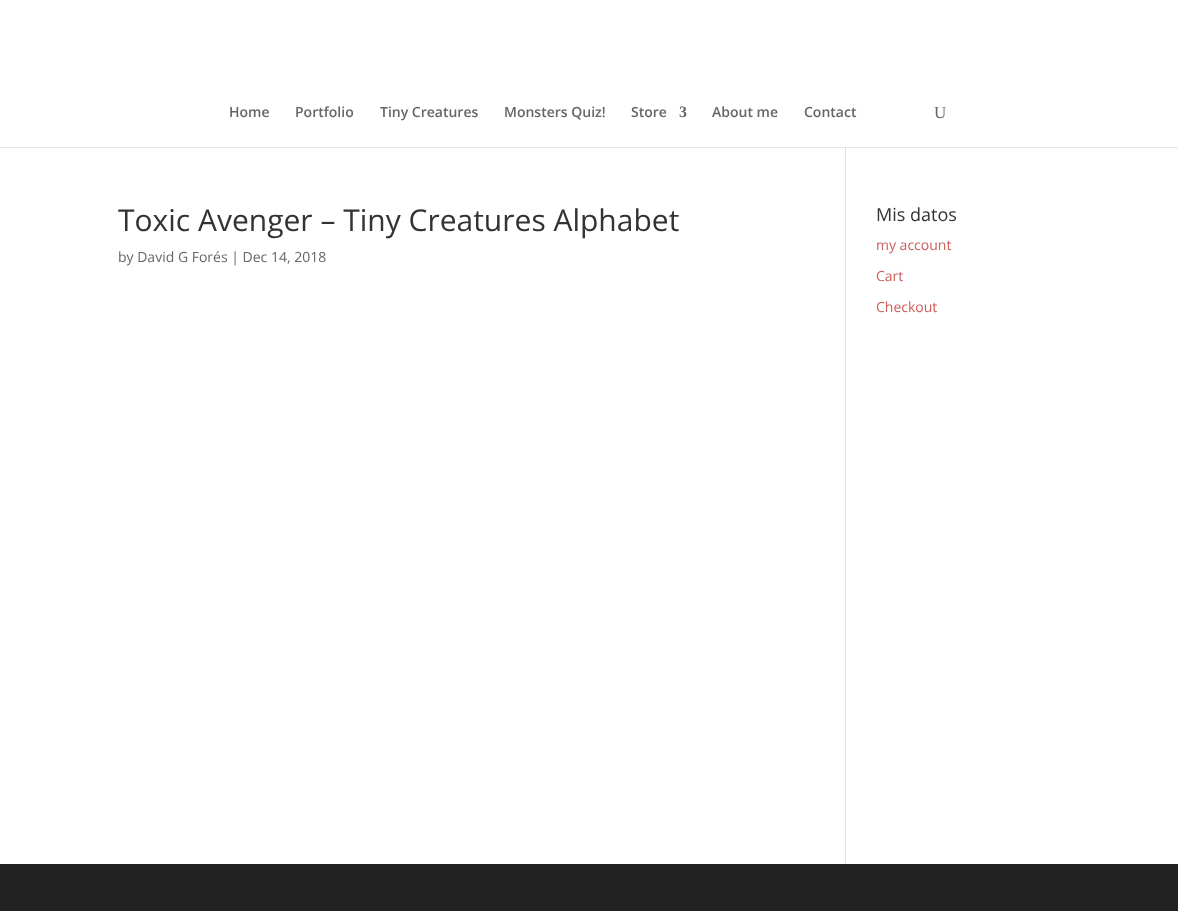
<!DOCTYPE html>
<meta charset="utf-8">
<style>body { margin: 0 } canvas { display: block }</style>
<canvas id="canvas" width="1178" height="911"></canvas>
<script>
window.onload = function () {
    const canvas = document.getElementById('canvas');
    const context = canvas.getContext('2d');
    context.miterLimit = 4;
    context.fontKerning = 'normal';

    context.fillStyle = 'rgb(255, 255, 255)';
    context.fillRect(0, 0, 1178, 911);
    context.fillStyle = 'rgb(230, 230, 230)';
    context.fillRect(0, 147, 1178, 1);
    context.fillStyle = 'rgb(226, 226, 226)';
    context.fillRect(845, 147, 1, 717);
    context.fillStyle = 'rgb(203, 203, 203)';
    context.fillRect(845, 147, 1, 1);
    context.fillStyle = 'rgb(34, 34, 34)';
    context.fillRect(0, 864, 1178, 47);
    context.font = '600 14px Open Sans';
    context.fillStyle = 'rgb(102, 102, 102)';
    context.fillText('Home', 229, 117);
    context.fillText('Portfolio', 295, 117);
    context.fillText('Tiny Creatures', 380, 117);
    context.fillText('Monsters Quiz!', 504, 117);
    context.fillText('Store', 631, 117);
    context.font = 'bold 16px Liberation Serif';
    context.fillText('3', 679, 117);
    context.font = '600 14px Open Sans';
    context.fillText('About me', 712, 117);
    context.fillText('Contact', 804, 117);
    context.font = '17px Liberation Serif';
    context.fillText('U', 934, 118);
    context.font = '30px Open Sans';
    context.fillStyle = 'rgb(51, 51, 51)';
    context.fillText('Toxic Avenger – Tiny Creatures Alphabet', 118, 231);
    context.font = '14px Open Sans';
    context.fillStyle = 'rgb(102, 102, 102)';
    context.fillText('by David G Forés | Dec 14, 2018', 118, 262);
    context.font = '18px Open Sans';
    context.fillStyle = 'rgb(51, 51, 51)';
    context.fillText('Mis datos', 876, 221);
    context.font = '14px Open Sans';
    context.fillStyle = 'rgb(205, 92, 92)';
    context.fillText('my account', 876, 250);
    context.fillText('Cart', 876, 281);
    context.fillText('Checkout', 876, 312);
};
</script>
